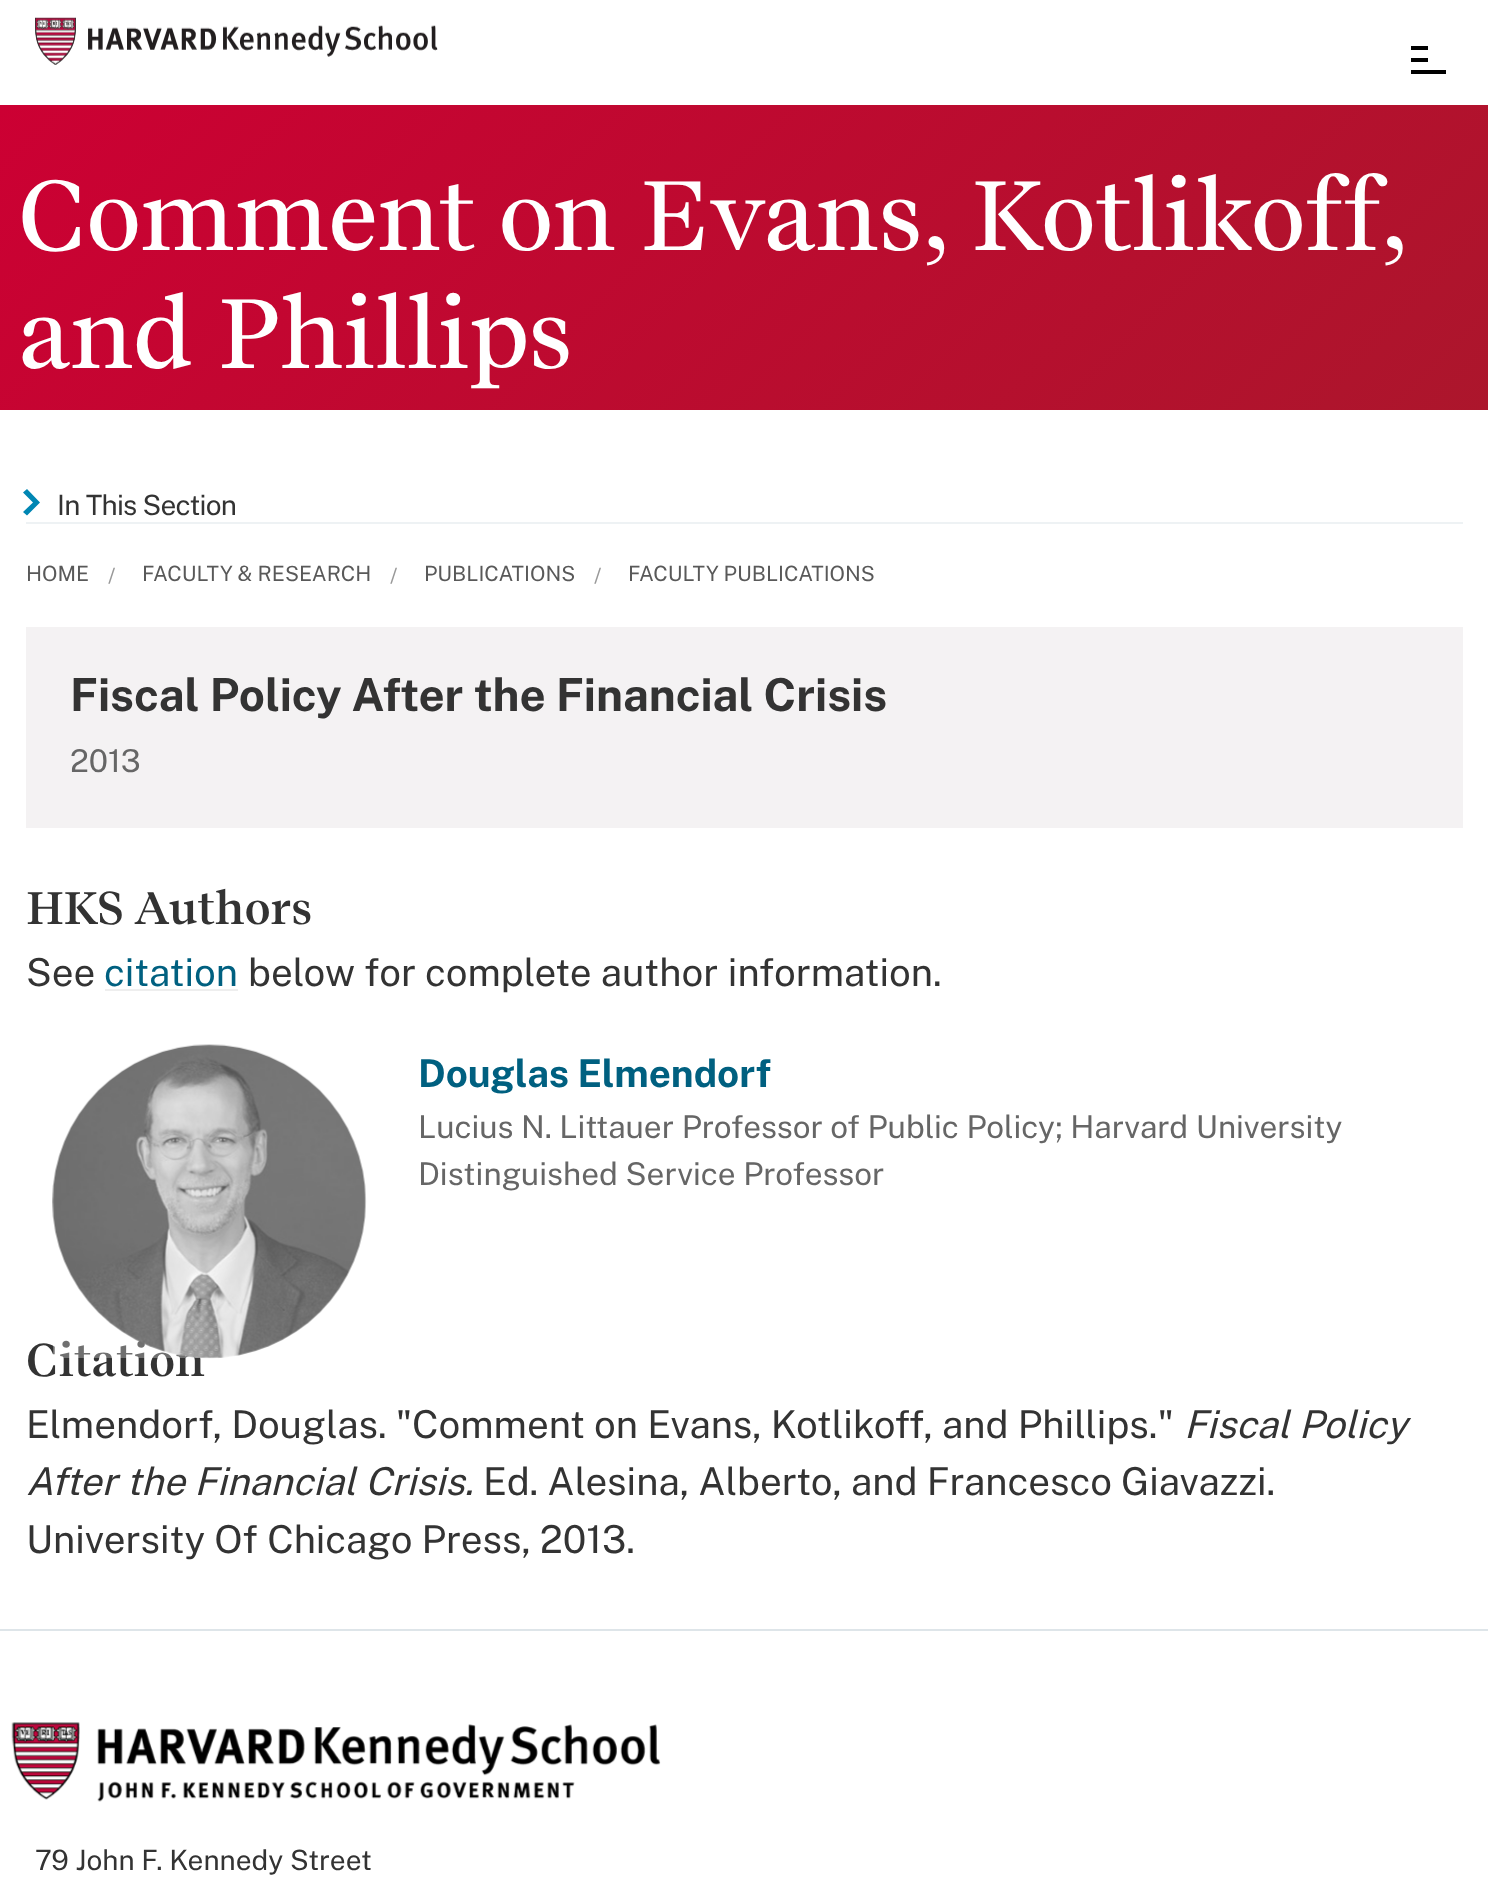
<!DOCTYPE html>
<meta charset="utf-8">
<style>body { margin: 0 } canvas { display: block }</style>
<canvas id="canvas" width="1488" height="1877"></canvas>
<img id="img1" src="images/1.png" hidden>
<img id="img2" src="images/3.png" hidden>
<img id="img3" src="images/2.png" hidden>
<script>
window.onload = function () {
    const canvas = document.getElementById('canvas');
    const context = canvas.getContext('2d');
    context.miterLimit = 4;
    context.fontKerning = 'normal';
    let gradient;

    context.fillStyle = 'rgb(255, 255, 255)';
    context.fillRect(0, 0, 1488, 1877);
    context.drawImage(document.getElementById('img1'), 35, 17, 403, 48);
    context.fillStyle = 'rgb(0, 0, 0)';
    context.fillRect(1411, 46, 17, 4);
    context.fillRect(1411, 58, 17, 4);
    context.fillRect(1411, 70, 35, 4);
    gradient = context.createLinearGradient(296, -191, 1193, 706);
    gradient.addColorStop(0, 'rgb(204, 0, 51)');
    gradient.addColorStop(1, 'rgb(172, 22, 44)');
    context.fillStyle = gradient;
    context.fillRect(0, 105, 1488, 305);
    context.fillStyle = 'rgb(238, 242, 244)';
    context.fillRect(26, 522, 1437, 2);
    context.fillStyle = 'rgb(0, 134, 179)';
    context.beginPath();
    context.moveTo(40, 502.5);
    context.lineTo(27, 489);
    context.lineTo(23, 492.5);
    context.lineTo(33, 502.5);
    context.lineTo(23, 512);
    context.lineTo(27, 515.5);
    context.closePath();
    context.fill();
    context.fillStyle = 'rgb(244, 242, 243)';
    context.fillRect(26, 627, 1437, 201);
    context.fillStyle = 'rgb(238, 238, 238)';
    context.fillRect(105, 989, 133, 2);
    context.fillStyle = 'rgb(222, 229, 233)';
    context.fillRect(0, 1629, 1488, 2);
    context.drawImage(document.getElementById('img2'), 11, 1722, 650, 80);
    context.letterSpacing = '-1.75px';
    context.wordSpacing = '-0.5px';
    context.font = '500 98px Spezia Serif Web';
    context.fillStyle = 'rgb(255, 255, 255)';
    context.fillText('Comment on Evans, Kotlikoff,', 18, 250);
    context.wordSpacing = '0px';
    context.fillText('and Phillips', 18, 368);
    context.letterSpacing = '-0.75px';
    context.font = '100 28px Public Sans';
    context.fillStyle = 'rgb(51, 51, 51)';
    context.fillText('In This Section', 57, 515);
    context.letterSpacing = '0px';
    context.font = '100 21px Public Sans';
    context.fillStyle = 'rgb(89, 89, 89)';
    context.fillText('HOME', 26, 581);
    context.fillStyle = 'rgb(153, 153, 153)';
    context.fillText('/', 108, 583);
    context.fillStyle = 'rgb(89, 89, 89)';
    context.fillText('FACULTY & RESEARCH', 142, 581);
    context.fillStyle = 'rgb(153, 153, 153)';
    context.fillText('/', 390, 583);
    context.fillStyle = 'rgb(89, 89, 89)';
    context.fillText('PUBLICATIONS', 424, 581);
    context.fillStyle = 'rgb(153, 153, 153)';
    context.fillText('/', 594, 583);
    context.fillStyle = 'rgb(89, 89, 89)';
    context.fillText('FACULTY PUBLICATIONS', 628, 581);
    context.font = '100 45.5px "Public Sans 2"';
    context.fillStyle = 'rgb(51, 51, 51)';
    context.fillText('Fiscal Policy After the Financial Crisis', 70, 711);
    context.font = '100 31.5px Public Sans';
    context.fillStyle = 'rgb(102, 102, 102)';
    context.fillText('2013', 70, 772);
    context.letterSpacing = '-0.5px';
    context.font = '600 45.5px Spezia Serif Web';
    context.fillStyle = 'rgb(51, 51, 51)';
    context.fillText('HKS Authors', 26, 924);
    context.letterSpacing = '0px';
    context.font = '100 38.5px Public Sans';
    context.fillText('See', 26, 986);
    context.fillStyle = 'rgb(0, 96, 128)';
    context.fillText('citation', 104, 986);
    context.fillStyle = 'rgb(51, 51, 51)';
    context.fillText('below for complete author information.', 248, 986);
    context.font = '100 38.5px "Public Sans 2"';
    context.fillStyle = 'rgb(0, 96, 128)';
    context.fillText('Douglas Elmendorf', 418, 1087);
    context.font = '100 31.5px Public Sans';
    context.fillStyle = 'rgb(102, 102, 102)';
    context.fillText('Lucius N. Littauer Professor of Public Policy; Harvard University', 418, 1138);
    context.fillText('Distinguished Service Professor', 418, 1185);
    context.letterSpacing = '-0.5px';
    context.font = '600 45.5px Spezia Serif Web';
    context.fillStyle = 'rgb(51, 51, 51)';
    context.fillText('Citation', 26, 1376);
    context.drawImage(document.getElementById('img3'), 52, 1044, 315, 315);
    context.fillStyle = 'rgba(255, 255, 255, 0.3)';
    context.fillRect(53, 1045, 313, 313);
    context.letterSpacing = '0px';
    context.font = '100 38.5px Public Sans';
    context.fillStyle = 'rgb(51, 51, 51)';
    context.fillText('Elmendorf, Douglas. "Comment on Evans, Kotlikoff, and Phillips."', 26, 1438);
    context.font = 'italic 100 38.5px Public Sans';
    context.fillText('Fiscal Policy', 1184, 1438);
    context.fillText('After the Financial Crisis.', 26, 1495);
    context.font = '100 38.5px Public Sans';
    context.fillText('Ed. Alesina, Alberto, and Francesco Giavazzi.', 483, 1495);
    context.fillText('University Of Chicago Press, 2013.', 26, 1553);
    context.font = '100 28px Public Sans';
    context.fillText('79 John F. Kennedy Street', 35, 1870);
};
</script>
